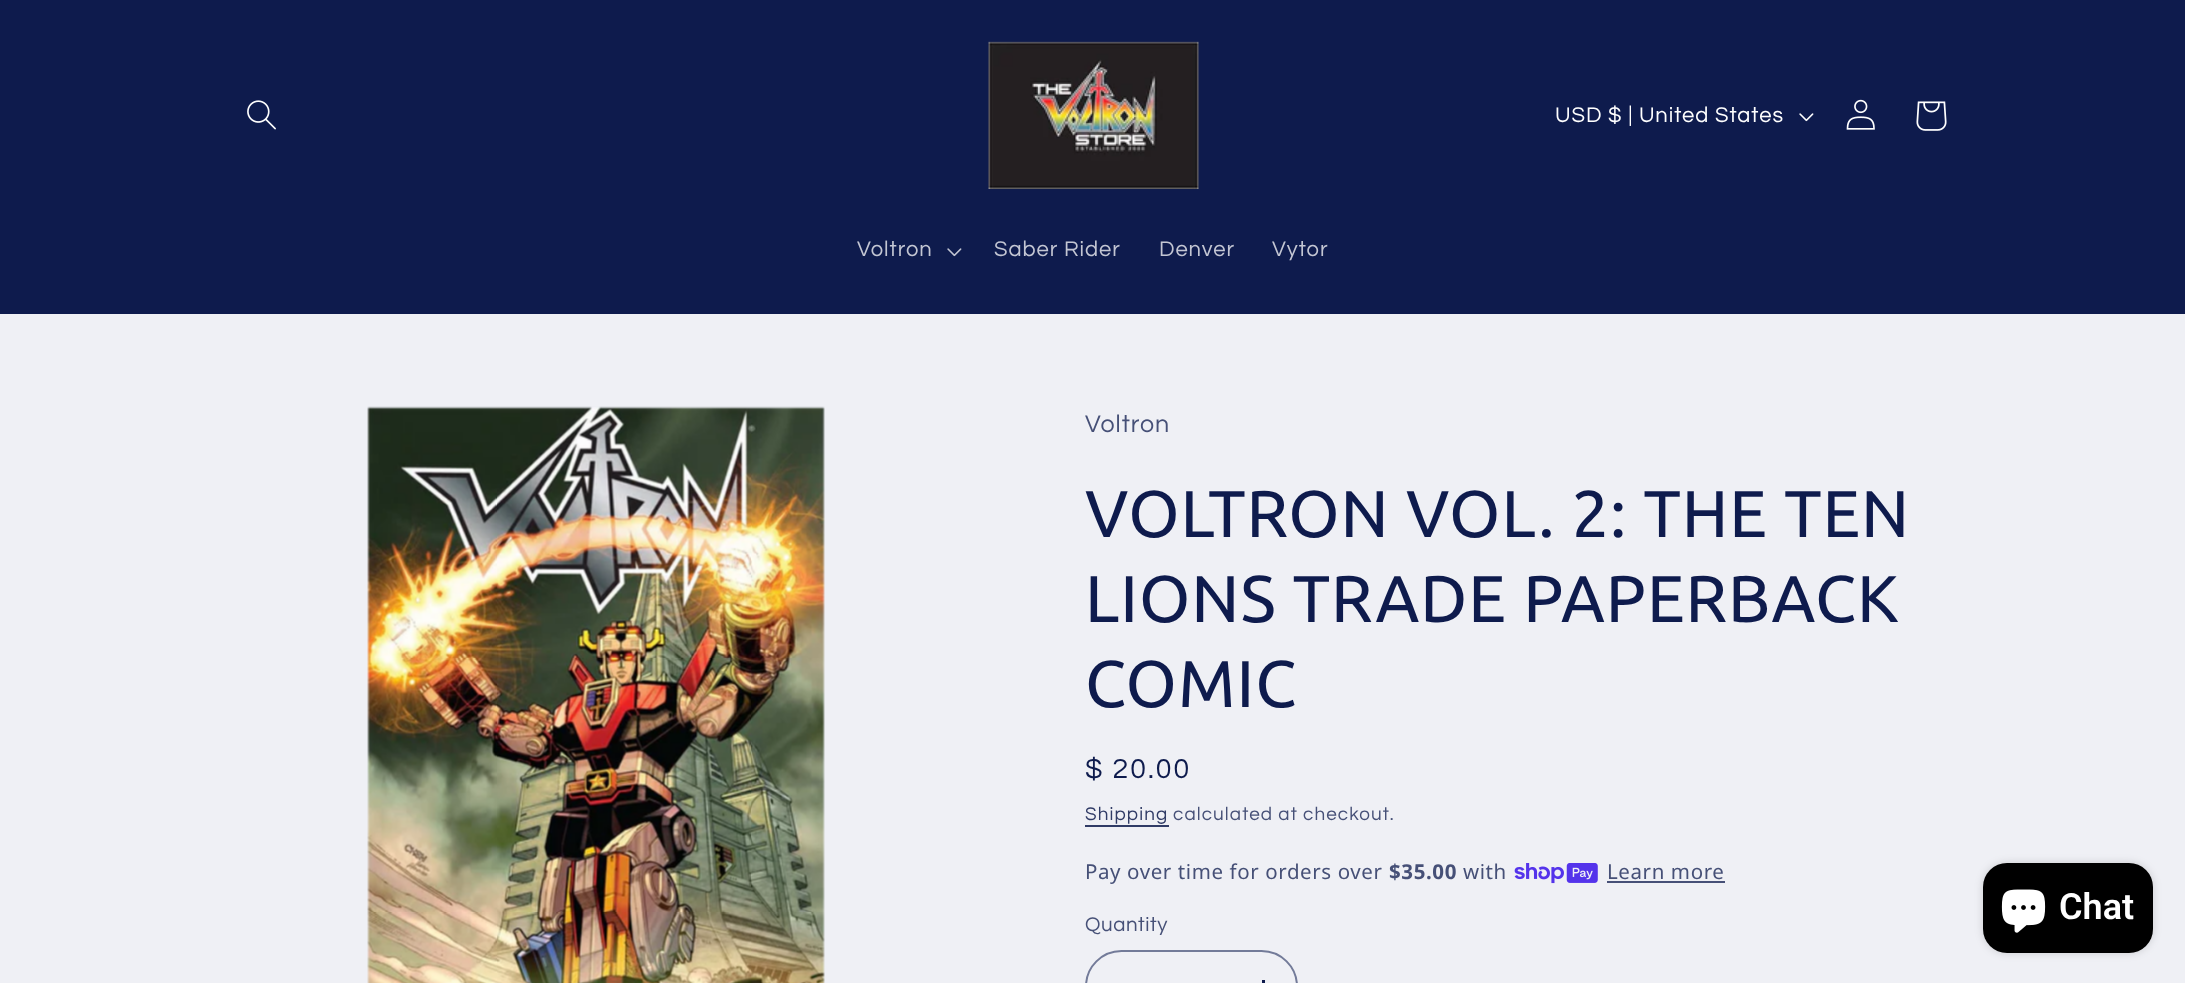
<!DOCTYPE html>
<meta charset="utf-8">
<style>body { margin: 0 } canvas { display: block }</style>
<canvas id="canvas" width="2185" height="983"></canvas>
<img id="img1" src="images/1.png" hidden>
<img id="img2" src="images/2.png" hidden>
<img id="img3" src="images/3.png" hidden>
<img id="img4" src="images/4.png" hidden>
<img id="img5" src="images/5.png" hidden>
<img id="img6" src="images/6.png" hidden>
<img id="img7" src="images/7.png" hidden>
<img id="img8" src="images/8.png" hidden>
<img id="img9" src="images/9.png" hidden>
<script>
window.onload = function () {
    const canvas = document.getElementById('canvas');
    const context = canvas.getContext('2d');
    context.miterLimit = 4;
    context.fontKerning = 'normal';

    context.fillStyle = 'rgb(239, 240, 245)';
    context.fillRect(0, 0, 2185, 983);
    context.fillStyle = 'rgb(14, 27, 77)';
    context.fillRect(0, 0, 2185, 314);
    context.drawImage(document.getElementById('img1'), 247, 100, 29, 30);
    context.drawImage(document.getElementById('img2'), 988, 41, 211, 148);
    context.drawImage(document.getElementById('img3'), 1799, 113, 15, 9);
    context.drawImage(document.getElementById('img4'), 1846, 99, 29, 31);
    context.drawImage(document.getElementById('img5'), 1916, 101, 31, 30);
    context.drawImage(document.getElementById('img6'), 947, 248, 15, 9);
    context.drawImage(document.getElementById('img7'), 367, 406, 458, 577);
    context.fillStyle = 'rgb(48, 59, 102)';
    context.fillRect(1085, 825, 84, 2);
    context.drawImage(document.getElementById('img8'), 1514, 863, 84, 21);
    context.fillStyle = 'rgb(70, 80, 119)';
    context.fillRect(1607, 881, 118, 2);
    context.fillStyle = 'rgb(14, 27, 77)';
    context.fillRect(1262, 980, 3, 3);
    context.beginPath();
    context.roundRect(1086, 951, 211, 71, 36.5);
    context.strokeStyle = 'rgb(115, 123, 153)';
    context.lineWidth = 2;
    context.stroke();
    context.fillStyle = 'rgba(0, 0, 0, 0.15)';
    context.filter = 'blur(4px)';
    context.beginPath();
    context.roundRect(1983, 863, 170, 90, 24);
    context.fill();
    context.filter = 'none';
    context.fillStyle = 'rgb(0, 0, 0)';
    context.beginPath();
    context.roundRect(1983, 863, 170, 90, 24);
    context.fill();
    context.drawImage(document.getElementById('img9'), 2001, 889, 45, 44);
    context.letterSpacing = '0.95px';
    context.font = '22px Questrial';
    context.fillStyle = 'rgb(255, 255, 255)';
    context.fillText('USD $ | United States', 1555, 122);
    context.fillStyle = 'rgb(195, 198, 211)';
    context.fillText('Voltron', 857, 256);
    context.fillText('Saber Rider', 994, 256);
    context.fillText('Denver', 1159, 256);
    context.fillText('Vytor', 1272, 256);
    context.font = '25px Questrial';
    context.fillStyle = 'rgb(70, 80, 119)';
    context.fillText('Voltron', 1085, 432);
    context.letterSpacing = '1px';
    context.font = '66px Ubuntu';
    context.fillStyle = 'rgb(14, 27, 77)';
    context.fillText('VOLTRON VOL. 2: THE TEN', 1085, 537);
    context.fillText('LIONS TRADE PAPERBACK', 1085, 622);
    context.fillText('COMIC', 1085, 707);
    context.letterSpacing = '2px';
    context.font = '28.5px Questrial';
    context.fillText('$ 20.00', 1085, 778);
    context.letterSpacing = '1.1px';
    context.font = '18.9px Questrial';
    context.fillStyle = 'rgb(48, 59, 102)';
    context.fillText('Shipping', 1085, 820);
    context.fillStyle = 'rgb(70, 80, 119)';
    context.fillText('calculated at checkout.', 1173, 820);
    context.letterSpacing = '0.6px';
    context.font = '20.5px Noto Sans';
    context.fillText('Pay over time for orders over', 1085, 879);
    context.font = 'bold 20.5px Noto Sans';
    context.fillText('$35.00', 1389, 879);
    context.font = '20.5px Noto Sans';
    context.fillText('with', 1463, 879);
    context.fillText('Learn more', 1607, 879);
    context.font = '20.5px Questrial';
    context.fillText('Quantity', 1085, 931);
    context.letterSpacing = '0px';
    context.font = '600 36px Roboto';
    context.fillStyle = 'rgb(255, 255, 255)';
    context.fillText('Chat', 2059, 919);
};
</script>
